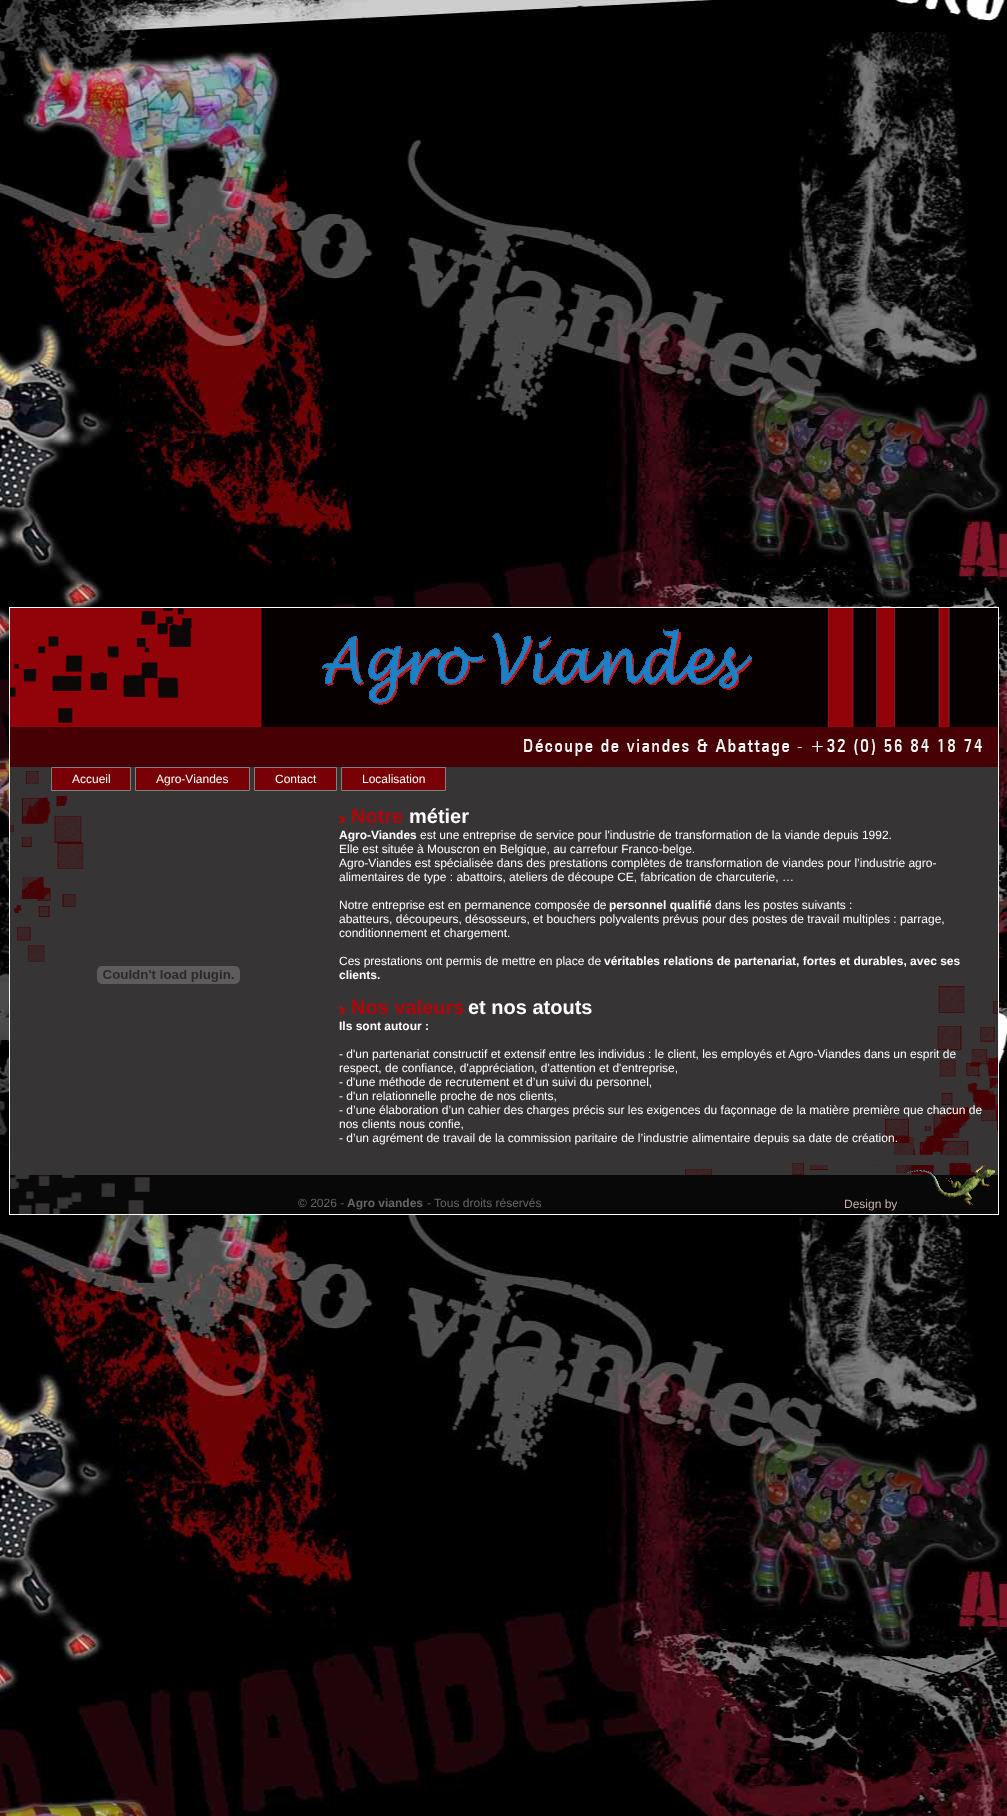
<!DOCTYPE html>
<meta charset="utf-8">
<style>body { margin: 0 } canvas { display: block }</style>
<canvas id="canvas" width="1007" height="1816"></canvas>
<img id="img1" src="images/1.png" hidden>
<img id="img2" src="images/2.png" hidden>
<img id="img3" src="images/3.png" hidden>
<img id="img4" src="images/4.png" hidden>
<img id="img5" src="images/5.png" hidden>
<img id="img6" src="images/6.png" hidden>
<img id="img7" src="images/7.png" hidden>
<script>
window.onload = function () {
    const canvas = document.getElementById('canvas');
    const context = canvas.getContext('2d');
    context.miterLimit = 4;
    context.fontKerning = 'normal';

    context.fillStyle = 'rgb(255, 255, 255)';
    context.fillRect(0, 0, 1007, 1816);
    context.drawImage(document.getElementById('img1'), 0, 0, 1007, 1816);
    context.drawImage(document.getElementById('img2'), 9, 607, 990, 160);
    context.drawImage(document.getElementById('img3'), 9, 767, 990, 388);
    context.fillStyle = 'rgb(119, 1, 6)';
    context.beginPath();
    context.rect(51.5, 767.5, 79, 23);
    context.fill();
    context.strokeStyle = 'rgb(128, 128, 128)';
    context.stroke();
    context.beginPath();
    context.rect(135.5, 767.5, 114, 23);
    context.fill();
    context.stroke();
    context.beginPath();
    context.rect(254.5, 767.5, 82, 23);
    context.fill();
    context.stroke();
    context.beginPath();
    context.rect(341.5, 767.5, 104, 23);
    context.fill();
    context.stroke();
    context.drawImage(document.getElementById('img4'), 97, 966, 143, 18);
    context.drawImage(document.getElementById('img5'), 339, 816, 6, 7);
    context.drawImage(document.getElementById('img5'), 339, 1007, 6, 7);
    context.drawImage(document.getElementById('img6'), 9, 1155, 990, 60);
    context.drawImage(document.getElementById('img7'), 907, 1165, 88, 40);
    context.font = '12px Liberation Sans';
    context.fillStyle = 'rgb(255, 255, 255)';
    context.fillText('Accueil', 72, 783);
    context.fillText('Agro-Viandes', 156, 783);
    context.fillText('Contact', 275, 783);
    context.fillText('Localisation', 362, 783);
    context.font = 'bold 20px Liberation Sans';
    context.fillStyle = 'rgb(182, 2, 11)';
    context.fillText('Notre', 351, 823);
    context.fillStyle = 'rgb(255, 255, 255)';
    context.fillText('métier', 409, 823);
    context.font = 'bold 12px Liberation Sans';
    context.fillText('Agro-Viandes', 339, 839);
    context.font = '12px Liberation Sans';
    context.fillText('est une entreprise de service pour l\'industrie de transformation de la viande depuis 1992.', 420, 839);
    context.fillText('Elle est située à Mouscron en Belgique, au carrefour Franco-belge.', 339, 853);
    context.fillText('Agro-Viandes est spécialisée dans des prestations complètes de transformation de viandes pour l’industrie agro-', 339, 867);
    context.fillText('alimentaires de type : abattoirs, ateliers de découpe CE, fabrication de charcuterie, …', 339, 881);
    context.fillText('Notre entreprise est en permanence composée de', 339, 909);
    context.font = 'bold 12px Liberation Sans';
    context.fillText('personnel qualifié', 609, 909);
    context.font = '12px Liberation Sans';
    context.fillText('dans les postes suivants :', 715, 909);
    context.fillText('abatteurs, découpeurs, désosseurs, et bouchers polyvalents prévus pour des postes de travail multiples : parrage,', 339, 923);
    context.fillText('conditionnement et chargement.', 339, 937);
    context.fillText('Ces prestations ont permis de mettre en place de', 339, 965);
    context.font = 'bold 12px Liberation Sans';
    context.fillText('véritables relations de partenariat, fortes et durables, avec ses', 604, 965);
    context.fillText('clients.', 339, 979);
    context.font = 'bold 20px Liberation Sans';
    context.fillStyle = 'rgb(182, 2, 11)';
    context.fillText('Nos valeurs', 351, 1014);
    context.fillStyle = 'rgb(255, 255, 255)';
    context.fillText('et nos atouts', 468, 1014);
    context.font = 'bold 12px Liberation Sans';
    context.fillText('Ils sont autour :', 339, 1030);
    context.font = '12px Liberation Sans';
    context.fillText('- d\'un partenariat constructif et extensif entre les individus : le client, les employés et Agro-Viandes dans un esprit de', 339, 1058);
    context.fillText('respect, de confiance, d\'appréciation, d\'attention et d\'entreprise,', 339, 1072);
    context.fillText('- d\'une méthode de recrutement et d’un suivi du personnel,', 339, 1086);
    context.fillText('- d\'un relationnelle proche de nos clients,', 339, 1100);
    context.fillText('- d’une élaboration d’un cahier des charges précis sur les exigences du façonnage de la matière première que chacun de', 339, 1114);
    context.fillText('nos clients nous confie,', 339, 1128);
    context.fillText('- d’un agrément de travail de la commission paritaire de l’industrie alimentaire depuis sa date de création.', 339, 1142);
    context.fillStyle = 'rgb(102, 102, 102)';
    context.fillText('© 2026 -', 298, 1207);
    context.font = 'bold 12px Liberation Sans';
    context.fillText('Agro viandes', 347, 1207);
    context.font = '12px Liberation Sans';
    context.fillText('- Tous droits réservés', 427, 1207);
    context.fillStyle = 'rgb(205, 176, 176)';
    context.fillText('Design by', 844, 1208);
};
</script>
